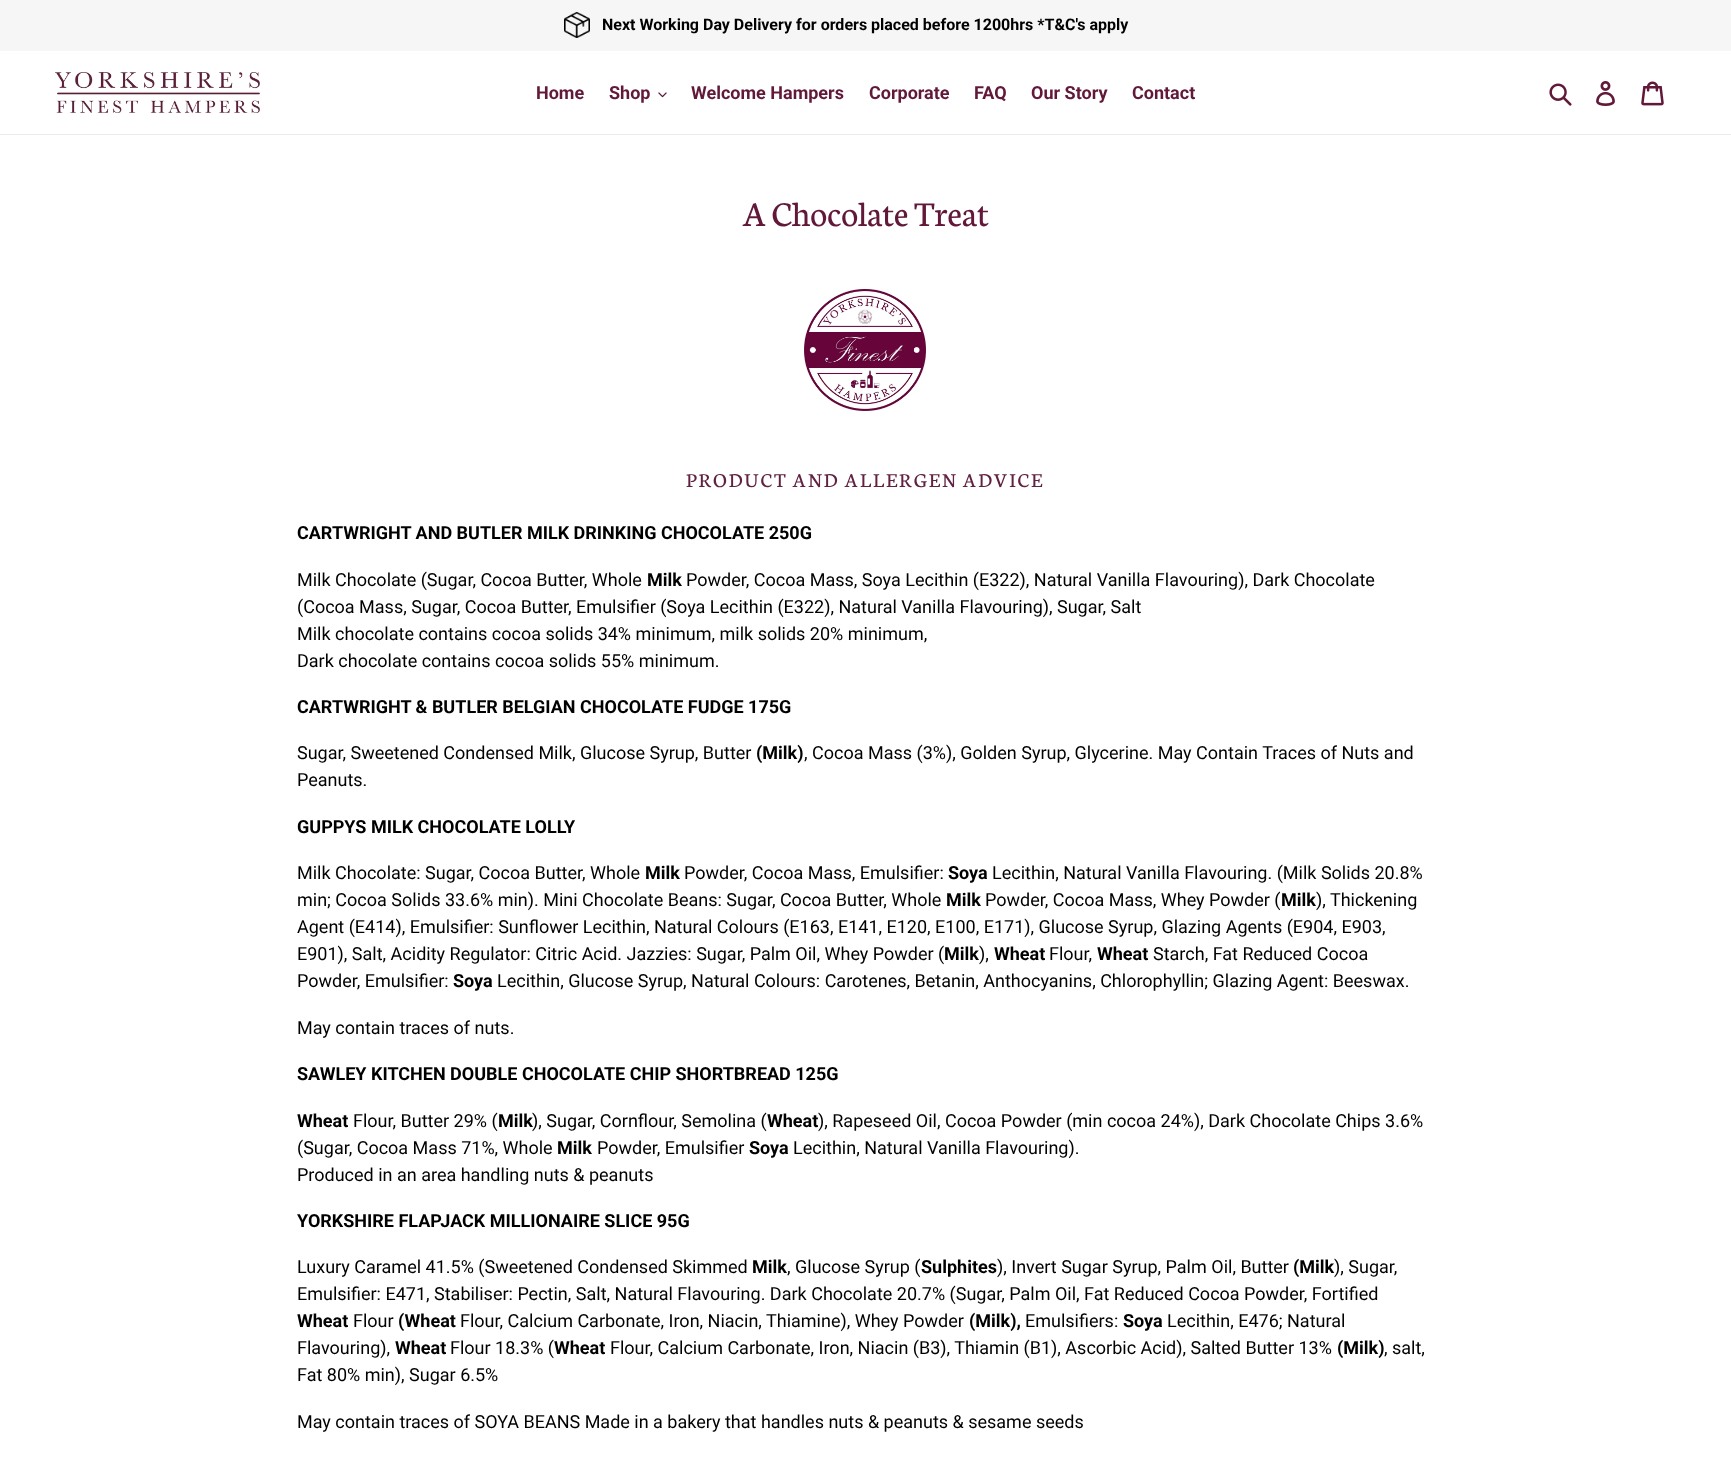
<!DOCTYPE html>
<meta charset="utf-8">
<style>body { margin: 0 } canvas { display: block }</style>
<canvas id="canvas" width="1731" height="1457"></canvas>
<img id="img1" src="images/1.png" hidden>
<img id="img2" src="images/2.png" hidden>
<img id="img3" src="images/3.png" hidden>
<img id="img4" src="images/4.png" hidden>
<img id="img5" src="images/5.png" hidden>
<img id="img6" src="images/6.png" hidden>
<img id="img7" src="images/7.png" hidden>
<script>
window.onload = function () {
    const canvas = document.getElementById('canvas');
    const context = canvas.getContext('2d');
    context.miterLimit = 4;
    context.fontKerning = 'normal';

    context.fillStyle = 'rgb(255, 255, 255)';
    context.fillRect(0, 0, 1731, 1457);
    context.fillStyle = 'rgb(246, 246, 246)';
    context.fillRect(0, 0, 1731, 51);
    context.drawImage(document.getElementById('img1'), 564, 12, 26, 26);
    context.fillStyle = 'rgb(235, 235, 235)';
    context.fillRect(0, 134, 1731, 1);
    context.drawImage(document.getElementById('img2'), 55, 72, 205, 41);
    context.drawImage(document.getElementById('img3'), 658, 92, 9, 6);
    context.drawImage(document.getElementById('img4'), 1549, 83, 23, 23);
    context.drawImage(document.getElementById('img5'), 1596, 81, 19, 25);
    context.drawImage(document.getElementById('img6'), 1641, 81, 23, 25);
    context.drawImage(document.getElementById('img7'), 804, 289, 122, 122);
    context.font = 'bold 16px Roboto';
    context.fillStyle = 'rgb(0, 0, 0)';
    context.fillText('Next Working Day Delivery for orders placed before 1200hrs *T&C\'s apply', 602, 30);
    context.font = 'bold 18px Roboto';
    context.fillStyle = 'rgb(97, 24, 57)';
    context.fillText('Home', 536, 99);
    context.fillText('Shop', 609, 99);
    context.fillText('Welcome Hampers', 691, 99);
    context.fillText('Corporate', 869, 99);
    context.fillText('FAQ', 974, 99);
    context.fillText('Our Story', 1031, 99);
    context.fillText('Contact', 1132, 99);
    context.font = '37px Neuton';
    context.fillText('A Chocolate Treat', 743, 226);
    context.letterSpacing = '2.1px';
    context.font = '21px Neuton';
    context.fillStyle = 'rgb(97, 33, 65)';
    context.fillText('PRODUCT AND ALLERGEN ADVICE', 686, 487);
    context.letterSpacing = '0px';
    context.font = 'bold 18px Roboto';
    context.fillStyle = 'rgb(0, 0, 0)';
    context.fillText('CARTWRIGHT AND BUTLER MILK DRINKING CHOCOLATE 250G', 297, 539);
    context.font = '18px Roboto';
    context.fillText('Milk Chocolate (Sugar, Cocoa Butter, Whole', 297, 586);
    context.font = 'bold 18px Roboto';
    context.fillText('Milk', 647, 586);
    context.font = '18px Roboto';
    context.fillText('Powder, Cocoa Mass, Soya Lecithin (E322), Natural Vanilla Flavouring), Dark Chocolate', 686, 586);
    context.fillText('(Cocoa Mass, Sugar, Cocoa Butter, Emulsifier (Soya Lecithin (E322), Natural Vanilla Flavouring), Sugar, Salt', 297, 613);
    context.fillText('Milk chocolate contains cocoa solids 34% minimum, milk solids 20% minimum,', 297, 640);
    context.fillText('Dark chocolate contains cocoa solids 55% minimum.', 297, 667);
    context.font = 'bold 18px Roboto';
    context.fillText('CARTWRIGHT & BUTLER BELGIAN CHOCOLATE FUDGE 175G', 297, 713);
    context.font = '18px Roboto';
    context.fillText('Sugar, Sweetened Condensed Milk, Glucose Syrup, Butter', 297, 759);
    context.font = 'bold 18px Roboto';
    context.fillText('(Milk)', 756, 759);
    context.font = '18px Roboto';
    context.fillText(', Cocoa Mass (3%), Golden Syrup, Glycerine. May Contain Traces of Nuts and', 804, 759);
    context.fillText('Peanuts.', 297, 786);
    context.font = 'bold 18px Roboto';
    context.fillText('GUPPYS MILK CHOCOLATE LOLLY', 297, 833);
    context.font = '18px Roboto';
    context.fillText('Milk Chocolate: Sugar, Cocoa Butter, Whole', 297, 879);
    context.font = 'bold 18px Roboto';
    context.fillText('Milk', 645, 879);
    context.font = '18px Roboto';
    context.fillText('Powder, Cocoa Mass, Emulsifier:', 684, 879);
    context.font = 'bold 18px Roboto';
    context.fillText('Soya', 948, 879);
    context.font = '18px Roboto';
    context.fillText('Lecithin, Natural Vanilla Flavouring. (Milk Solids 20.8%', 992, 879);
    context.fillText('min; Cocoa Solids 33.6% min). Mini Chocolate Beans: Sugar, Cocoa Butter, Whole', 297, 906);
    context.font = 'bold 18px Roboto';
    context.fillText('Milk', 946, 906);
    context.font = '18px Roboto';
    context.fillText('Powder, Cocoa Mass, Whey Powder (', 985, 906);
    context.font = 'bold 18px Roboto';
    context.fillText('Milk', 1281, 906);
    context.font = '18px Roboto';
    context.fillText('), Thickening', 1316, 906);
    context.fillText('Agent (E414), Emulsifier: Sunflower Lecithin, Natural Colours (E163, E141, E120, E100, E171), Glucose Syrup, Glazing Agents (E904, E903,', 297, 933);
    context.fillText('E901), Salt, Acidity Regulator: Citric Acid. Jazzies: Sugar, Palm Oil, Whey Powder (', 297, 960);
    context.font = 'bold 18px Roboto';
    context.fillText('Milk', 944, 960);
    context.font = '18px Roboto';
    context.fillText('),', 979, 960);
    context.font = 'bold 18px Roboto';
    context.fillText('Wheat', 994, 960);
    context.font = '18px Roboto';
    context.fillText('Flour,', 1049, 960);
    context.font = 'bold 18px Roboto';
    context.fillText('Wheat', 1097, 960);
    context.font = '18px Roboto';
    context.fillText('Starch, Fat Reduced Cocoa', 1153, 960);
    context.fillText('Powder, Emulsifier:', 297, 987);
    context.font = 'bold 18px Roboto';
    context.fillText('Soya', 453, 987);
    context.font = '18px Roboto';
    context.fillText('Lecithin, Glucose Syrup, Natural Colours: Carotenes, Betanin, Anthocyanins, Chlorophyllin; Glazing Agent: Beeswax.', 497, 987);
    context.fillText('May contain traces of nuts.', 297, 1034);
    context.font = 'bold 18px Roboto';
    context.fillText('SAWLEY KITCHEN DOUBLE CHOCOLATE CHIP SHORTBREAD 125G', 297, 1080);
    context.fillText('Wheat', 297, 1127);
    context.font = '18px Roboto';
    context.fillText('Flour, Butter 29% (', 353, 1127);
    context.font = 'bold 18px Roboto';
    context.fillText('Milk', 498, 1127);
    context.font = '18px Roboto';
    context.fillText('), Sugar, Cornflour, Semolina (', 532, 1127);
    context.font = 'bold 18px Roboto';
    context.fillText('Wheat', 767, 1127);
    context.font = '18px Roboto';
    context.fillText('), Rapeseed Oil, Cocoa Powder (min cocoa 24%), Dark Chocolate Chips 3.6%', 818, 1127);
    context.fillText('(Sugar, Cocoa Mass 71%, Whole', 297, 1154);
    context.font = 'bold 18px Roboto';
    context.fillText('Milk', 557, 1154);
    context.font = '18px Roboto';
    context.fillText('Powder, Emulsifier', 597, 1154);
    context.font = 'bold 18px Roboto';
    context.fillText('Soya', 749, 1154);
    context.font = '18px Roboto';
    context.fillText('Lecithin, Natural Vanilla Flavouring).', 793, 1154);
    context.fillText('Produced in an area handling nuts & peanuts', 297, 1181);
    context.font = 'bold 18px Roboto';
    context.fillText('YORKSHIRE FLAPJACK MILLIONAIRE SLICE 95G', 297, 1227);
    context.font = '18px Roboto';
    context.fillText('Luxury Caramel 41.5% (Sweetened Condensed Skimmed', 297, 1273);
    context.font = 'bold 18px Roboto';
    context.fillText('Milk', 752, 1273);
    context.font = '18px Roboto';
    context.fillText(', Glucose Syrup (', 787, 1273);
    context.font = 'bold 18px Roboto';
    context.fillText('Sulphites', 921, 1273);
    context.font = '18px Roboto';
    context.fillText('), Invert Sugar Syrup, Palm Oil, Butter', 997, 1273);
    context.font = 'bold 18px Roboto';
    context.fillText('(Milk', 1293, 1273);
    context.font = '18px Roboto';
    context.fillText('), Sugar,', 1334, 1273);
    context.fillText('Emulsifier: E471, Stabiliser: Pectin, Salt, Natural Flavouring. Dark Chocolate 20.7% (Sugar, Palm Oil, Fat Reduced Cocoa Powder, Fortified', 297, 1300);
    context.font = 'bold 18px Roboto';
    context.fillText('Wheat', 297, 1327);
    context.font = '18px Roboto';
    context.fillText('Flour', 353, 1327);
    context.font = 'bold 18px Roboto';
    context.fillText('(Wheat', 398, 1327);
    context.font = '18px Roboto';
    context.fillText('Flour, Calcium Carbonate, Iron, Niacin, Thiamine), Whey Powder', 460, 1327);
    context.font = 'bold 18px Roboto';
    context.fillText('(Milk),', 969, 1327);
    context.font = '18px Roboto';
    context.fillText('Emulsifiers:', 1025, 1327);
    context.font = 'bold 18px Roboto';
    context.fillText('Soya', 1123, 1327);
    context.font = '18px Roboto';
    context.fillText('Lecithin, E476; Natural', 1167, 1327);
    context.fillText('Flavouring),', 297, 1354);
    context.font = 'bold 18px Roboto';
    context.fillText('Wheat', 395, 1354);
    context.font = '18px Roboto';
    context.fillText('Flour 18.3% (', 450, 1354);
    context.font = 'bold 18px Roboto';
    context.fillText('Wheat', 554, 1354);
    context.font = '18px Roboto';
    context.fillText('Flour, Calcium Carbonate, Iron, Niacin (B3), Thiamin (B1), Ascorbic Acid), Salted Butter 13%', 610, 1354);
    context.font = 'bold 18px Roboto';
    context.fillText('(Milk)', 1337, 1354);
    context.font = '18px Roboto';
    context.fillText(', salt,', 1384, 1354);
    context.fillText('Fat 80% min), Sugar 6.5%', 297, 1381);
    context.fillText('May contain traces of SOYA BEANS Made in a bakery that handles nuts & peanuts & sesame seeds', 297, 1428);
};
</script>
